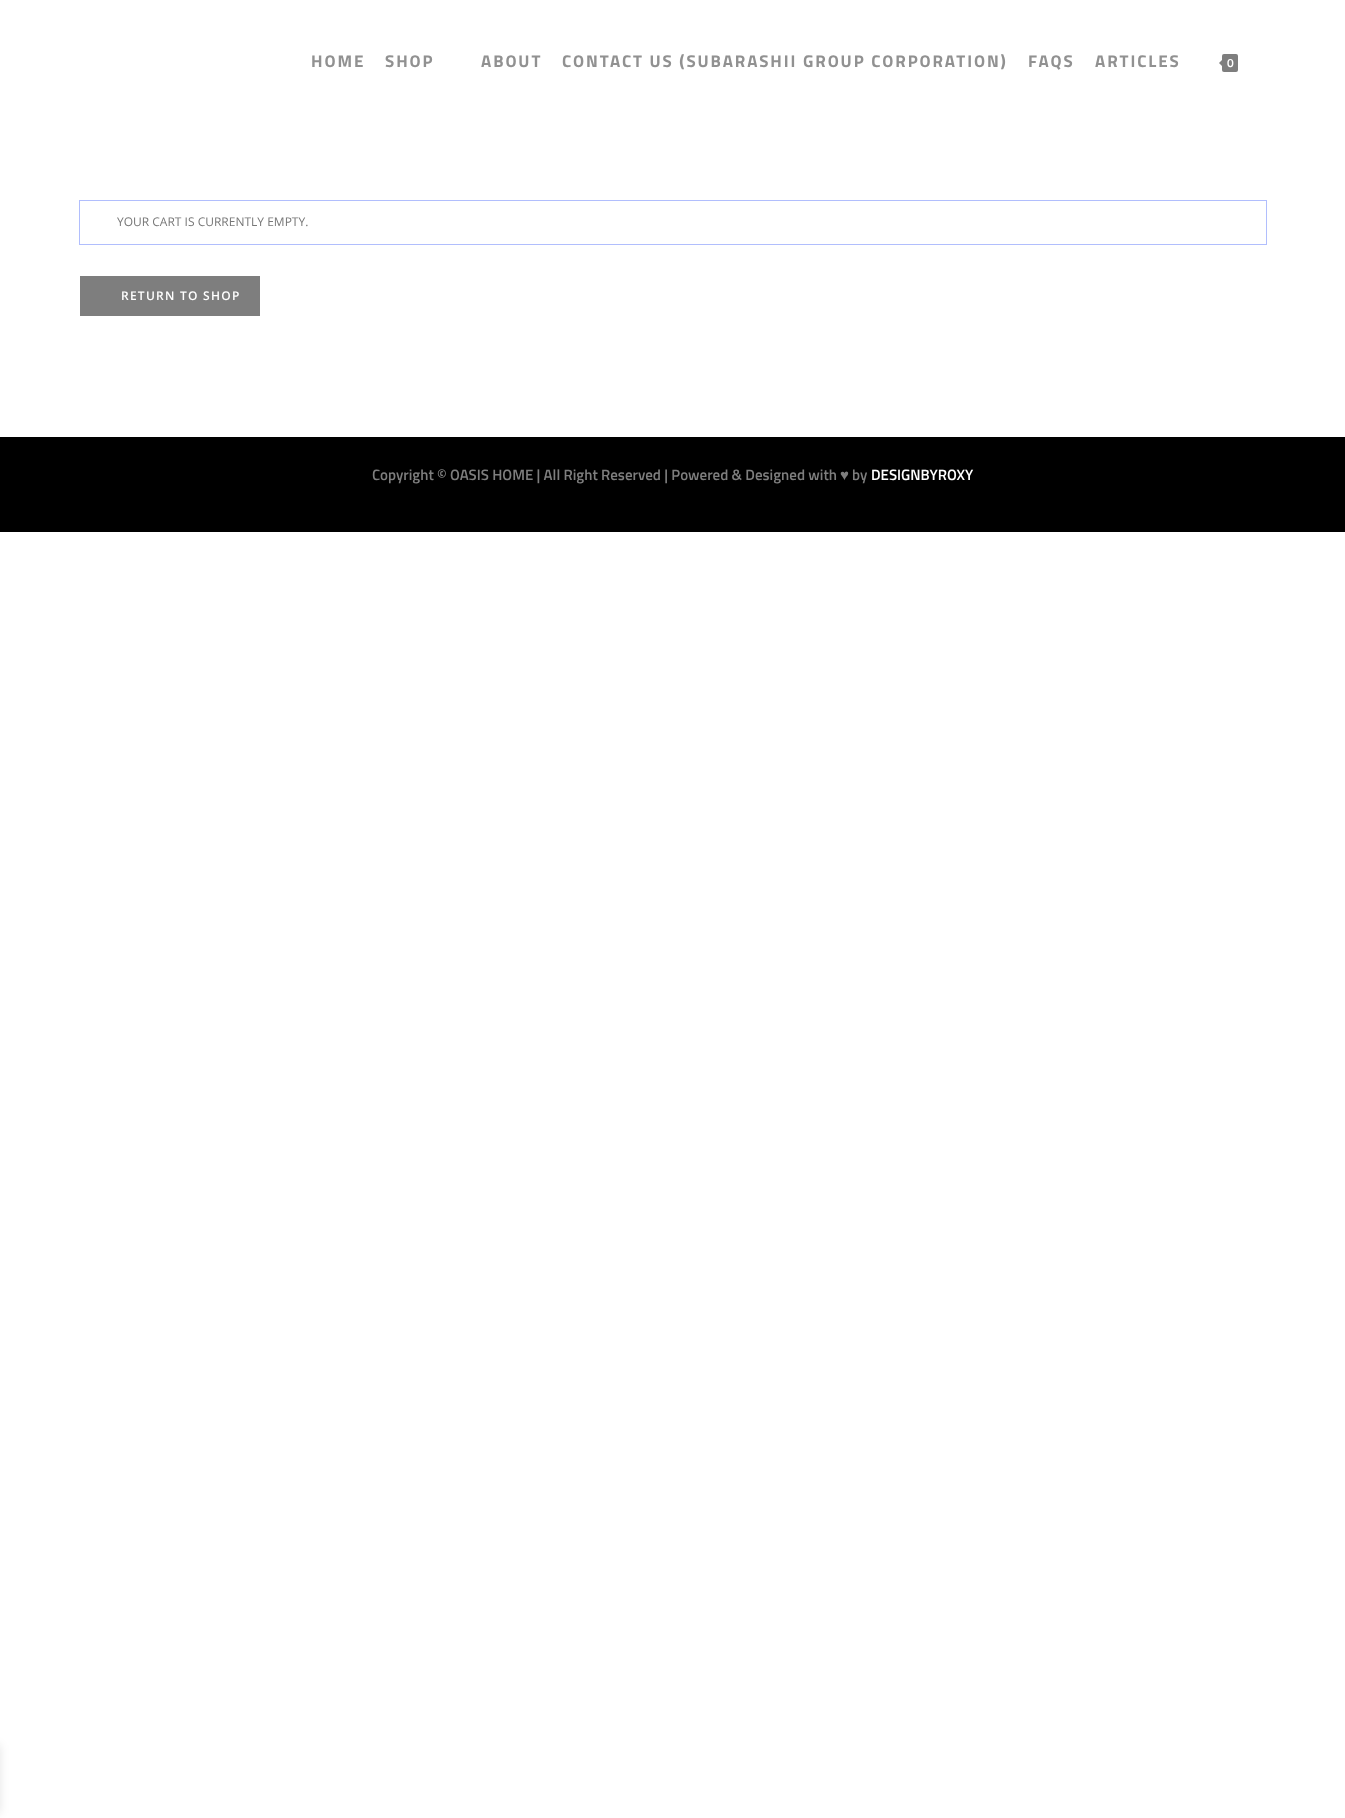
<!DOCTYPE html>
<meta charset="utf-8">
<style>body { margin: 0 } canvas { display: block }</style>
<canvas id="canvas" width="1345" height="1818"></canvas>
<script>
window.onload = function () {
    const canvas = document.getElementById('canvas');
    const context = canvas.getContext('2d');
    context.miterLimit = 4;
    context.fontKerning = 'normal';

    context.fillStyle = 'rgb(255, 255, 255)';
    context.fillRect(0, 0, 1345, 1818);
    context.fillStyle = 'rgb(126, 126, 126)';
    context.beginPath();
    context.roundRect(1222, 54, 16, 18, 2);
    context.fill();
    context.beginPath();
    context.moveTo(1224, 58);
    context.lineTo(1224, 68);
    context.lineTo(1219, 63);
    context.closePath();
    context.fill();
    context.strokeStyle = 'rgb(177, 190, 253)';
    context.strokeRect(79.5, 200.5, 1187, 44);
    context.fillRect(80, 276, 180, 40);
    context.fillStyle = 'rgb(0, 0, 0)';
    context.fillRect(0, 437, 1345, 95);
    context.fillStyle = 'rgba(0, 0, 0, 0.1)';
    context.filter = 'blur(5px)';
    context.beginPath();
    context.rect(-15, 1745, 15, 68);
    context.fill();
    context.filter = 'none';
    context.letterSpacing = '1.9px';
    context.font = 'bold 17px Titillium Web';
    context.fillStyle = 'rgb(145, 145, 145)';
    context.fillText('HOME', 311, 67);
    context.fillText('SHOP', 385, 67);
    context.fillText('ABOUT', 481, 67);
    context.fillText('CONTACT US (SUBARASHII GROUP CORPORATION)', 562, 67);
    context.fillText('FAQS', 1028, 67);
    context.fillText('ARTICLES', 1095, 67);
    context.letterSpacing = '0px';
    context.font = '600 12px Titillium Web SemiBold';
    context.fillStyle = 'rgb(255, 255, 255)';
    context.fillText('0', 1227, 67);
    context.font = '12px Open Sans';
    context.fillStyle = 'rgb(119, 119, 119)';
    context.fillText('YOUR CART IS CURRENTLY EMPTY.', 117, 226);
    context.letterSpacing = '1.25px';
    context.font = '600 12px Open Sans';
    context.fillStyle = 'rgb(255, 255, 255)';
    context.fillText('RETURN TO SHOP', 121, 300);
    context.letterSpacing = '0px';
    context.font = '600 15px Titillium Web SemiBold';
    context.fillStyle = 'rgb(126, 126, 126)';
    context.fillText('Copyright © OASIS HOME | All Right Reserved | Powered & Designed with', 372, 480);
    context.font = 'bold 15px Liberation Serif';
    context.fillText('♥', 840, 480);
    context.font = '600 15px Titillium Web SemiBold';
    context.fillText('by', 852, 480);
    context.fillStyle = 'rgb(255, 255, 255)';
    context.fillText('DESIGNBYROXY', 871, 480);
};
</script>
